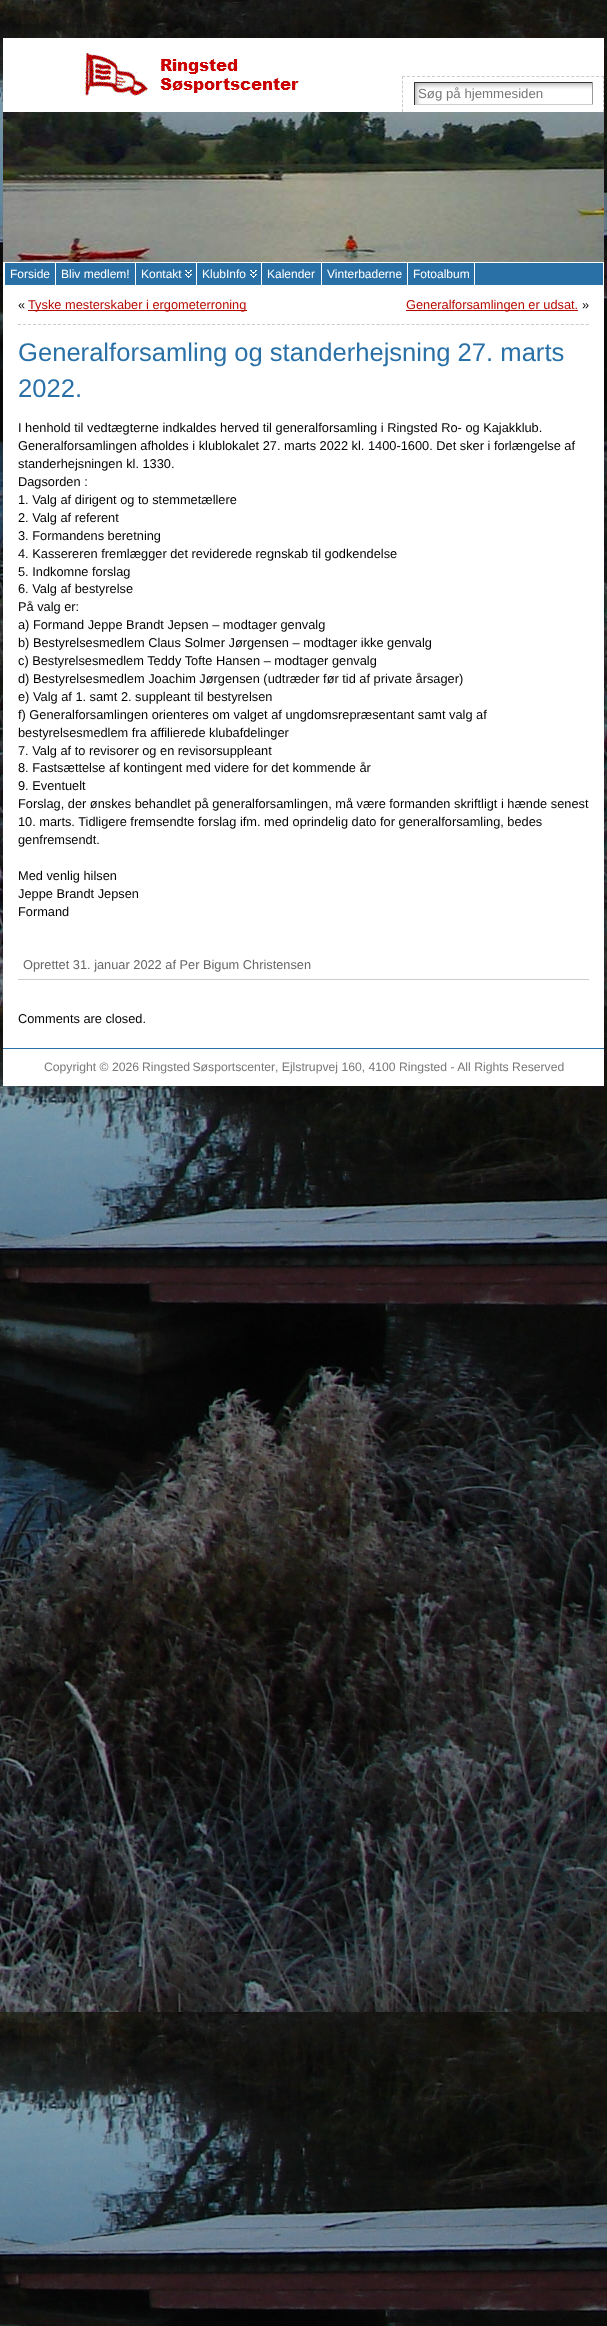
<!DOCTYPE html>
<meta charset="utf-8">
<style>body { margin: 0 } canvas { display: block }</style>
<canvas id="canvas" width="607" height="2326"></canvas>
<img id="img1" src="images/1.png" hidden>
<img id="img2" src="images/2.png" hidden>
<img id="img3" src="images/3.png" hidden>
<img id="img4" src="images/4.png" hidden>
<img id="img5" src="images/5.png" hidden>
<script>
window.onload = function () {
    const canvas = document.getElementById('canvas');
    const context = canvas.getContext('2d');
    context.miterLimit = 4;
    context.fontKerning = 'normal';

    context.fillStyle = 'rgb(255, 255, 255)';
    context.fillRect(0, 0, 607, 2326);
    context.drawImage(document.getElementById('img1'), 0, 0, 607, 2326);
    context.fillRect(3, 38, 601, 74);
    context.drawImage(document.getElementById('img2'), 85, 53, 214, 43);
    context.beginPath();
    context.moveTo(402, 76.5);
    context.lineTo(604, 76.5);
    context.strokeStyle = 'rgb(204, 204, 204)';
    context.setLineDash([3, 1.98]);
    context.stroke();
    context.beginPath();
    context.moveTo(603.5, 76);
    context.lineTo(603.5, 112);
    context.setLineDash([3, 1.71]);
    context.stroke();
    context.beginPath();
    context.moveTo(402.5, 76);
    context.lineTo(402.5, 112);
    context.stroke();
    context.drawImage(document.getElementById('img3'), 415, 83, 177, 21);
    context.fillStyle = 'rgb(51, 51, 51)';
    context.fillRect(414, 82, 179, 1);
    context.fillStyle = 'rgb(153, 153, 153)';
    context.fillRect(592, 82, 1, 23);
    context.fillStyle = 'rgb(204, 204, 204)';
    context.fillRect(414, 104, 179, 1);
    context.fillStyle = 'rgb(51, 51, 51)';
    context.fillRect(414, 82, 1, 23);
    context.drawImage(document.getElementById('img4'), 3, 112, 601, 150);
    context.fillStyle = 'rgb(41, 112, 166)';
    context.fillRect(475, 263, 128, 22);
    context.strokeStyle = 'rgb(255, 255, 255)';
    context.setLineDash([]);
    context.strokeRect(3.5, 262.5, 600, 23);
    context.beginPath();
    context.rect(4.5, 262.5, 51, 23);
    context.fill();
    context.stroke();
    context.beginPath();
    context.rect(55.5, 262.5, 80, 23);
    context.fill();
    context.stroke();
    context.fillRect(136, 263, 60, 22);
    context.drawImage(document.getElementById('img5'), 185, 270, 7, 8);
    context.strokeRect(135.5, 262.5, 61, 23);
    context.fillRect(197, 263, 64, 22);
    context.drawImage(document.getElementById('img5'), 250, 270, 7, 8);
    context.strokeRect(196.5, 262.5, 65, 23);
    context.beginPath();
    context.rect(261.5, 262.5, 60, 23);
    context.fill();
    context.stroke();
    context.beginPath();
    context.rect(321.5, 262.5, 86, 23);
    context.fill();
    context.stroke();
    context.beginPath();
    context.rect(407.5, 262.5, 67, 23);
    context.fill();
    context.stroke();
    context.fillStyle = 'rgb(255, 255, 255)';
    context.fillRect(3, 286, 601, 762);
    context.beginPath();
    context.moveTo(18, 324.5);
    context.lineTo(589, 324.5);
    context.strokeStyle = 'rgb(204, 204, 204)';
    context.setLineDash([3, 1.98]);
    context.stroke();
    context.fillStyle = 'rgb(182, 10, 0)';
    context.fillRect(28, 310, 219, 1);
    context.fillRect(406, 310, 172, 1);
    context.fillStyle = 'rgb(204, 204, 204)';
    context.fillRect(18, 979, 571, 1);
    context.fillStyle = 'rgb(255, 255, 255)';
    context.fillRect(3, 1049, 601, 37);
    context.fillStyle = 'rgb(41, 112, 166)';
    context.fillRect(3, 1048, 601, 1);
    context.font = '12.8px Liberation Sans';
    context.fillStyle = 'rgb(0, 0, 0)';
    context.fillText('.', 302, 33);
    context.font = '13.25px Liberation Sans';
    context.fillStyle = 'rgb(119, 119, 119)';
    context.fillText('Søg på hjemmesiden', 418, 98);
    context.font = '12px Liberation Sans';
    context.fillStyle = 'rgb(255, 255, 255)';
    context.fillText('Forside', 10, 278);
    context.fillText('Bliv medlem!', 61, 278);
    context.fillText('Kontakt', 141, 278);
    context.fillText('KlubInfo', 202, 278);
    context.fillText('Kalender', 267, 278);
    context.fillText('Vinterbaderne', 327, 278);
    context.fillText('Fotoalbum', 413, 278);
    context.font = '12.8px Liberation Sans';
    context.fillStyle = 'rgb(0, 0, 0)';
    context.fillText('«', 18, 309);
    context.fillStyle = 'rgb(182, 10, 0)';
    context.fillText('Tyske mesterskaber i ergometerroning', 28, 309);
    context.fillText('Generalforsamlingen er udsat.', 406, 309);
    context.fillStyle = 'rgb(0, 0, 0)';
    context.fillText('»', 582, 309);
    context.font = '25.6px Liberation Sans';
    context.fillStyle = 'rgb(41, 112, 166)';
    context.fillText('Generalforsamling og standerhejsning 27. marts', 18, 361);
    context.fillText('2022.', 18, 397);
    context.font = '12.8px Liberation Sans';
    context.fillStyle = 'rgb(0, 0, 0)';
    context.fillText('I henhold til vedtægterne indkaldes herved til generalforsamling i Ringsted Ro- og Kajakklub.', 18, 432);
    context.fillText('Generalforsamlingen afholdes i klublokalet 27. marts 2022 kl. 1400-1600. Det sker i forlængelse af', 18, 450);
    context.fillText('standerhejsningen kl. 1330.', 18, 468);
    context.fillText('Dagsorden :', 18, 486);
    context.fillText('1. Valg af dirigent og to stemmetællere', 18, 504);
    context.fillText('2. Valg af referent', 18, 522);
    context.fillText('3. Formandens beretning', 18, 540);
    context.fillText('4. Kassereren fremlægger det reviderede regnskab til godkendelse', 18, 558);
    context.fillText('5. Indkomne forslag', 18, 576);
    context.fillText('6. Valg af bestyrelse', 18, 593);
    context.fillText('På valg er:', 18, 611);
    context.fillText('a) Formand Jeppe Brandt Jepsen – modtager genvalg', 18, 629);
    context.fillText('b) Bestyrelsesmedlem Claus Solmer Jørgensen – modtager ikke genvalg', 18, 647);
    context.fillText('c) Bestyrelsesmedlem Teddy Tofte Hansen – modtager genvalg', 18, 665);
    context.fillText('d) Bestyrelsesmedlem Joachim Jørgensen (udtræder før tid af private årsager)', 18, 683);
    context.fillText('e) Valg af 1. samt 2. suppleant til bestyrelsen', 18, 701);
    context.fillText('f) Generalforsamlingen orienteres om valget af ungdomsrepræsentant samt valg af', 18, 719);
    context.fillText('bestyrelsesmedlem fra affilierede klubafdelinger', 18, 737);
    context.fillText('7. Valg af to revisorer og en revisorsuppleant', 18, 755);
    context.fillText('8. Fastsættelse af kontingent med videre for det kommende år', 18, 772);
    context.fillText('9. Eventuelt', 18, 790);
    context.fillText('Forslag, der ønskes behandlet på generalforsamlingen, må være formanden skriftligt i hænde senest', 18, 808);
    context.fillText('10. marts. Tidligere fremsendte forslag ifm. med oprindelig dato for generalforsamling, bedes', 18, 826);
    context.fillText('genfremsendt.', 18, 844);
    context.fillText('Med venlig hilsen', 18, 880);
    context.fillText('Jeppe Brandt Jepsen', 18, 898);
    context.fillText('Formand', 18, 916);
    context.fillStyle = 'rgb(102, 102, 102)';
    context.fillText('Oprettet 31. januar 2022 af Per Bigum Christensen', 23, 969);
    context.fillStyle = 'rgb(0, 0, 0)';
    context.fillText('Comments are closed.', 18, 1023);
    context.font = '12.2px Liberation Sans';
    context.fillStyle = 'rgb(119, 119, 119)';
    context.fillText('Copyright © 2026', 44, 1071);
    context.wordSpacing = '-1px';
    context.fillText('Ringsted Søsportscenter', 142, 1071);
    context.wordSpacing = '0px';
    context.fillText(', Ejlstrupvej 160, 4100 Ringsted - All Rights Reserved', 275, 1071);
};
</script>
